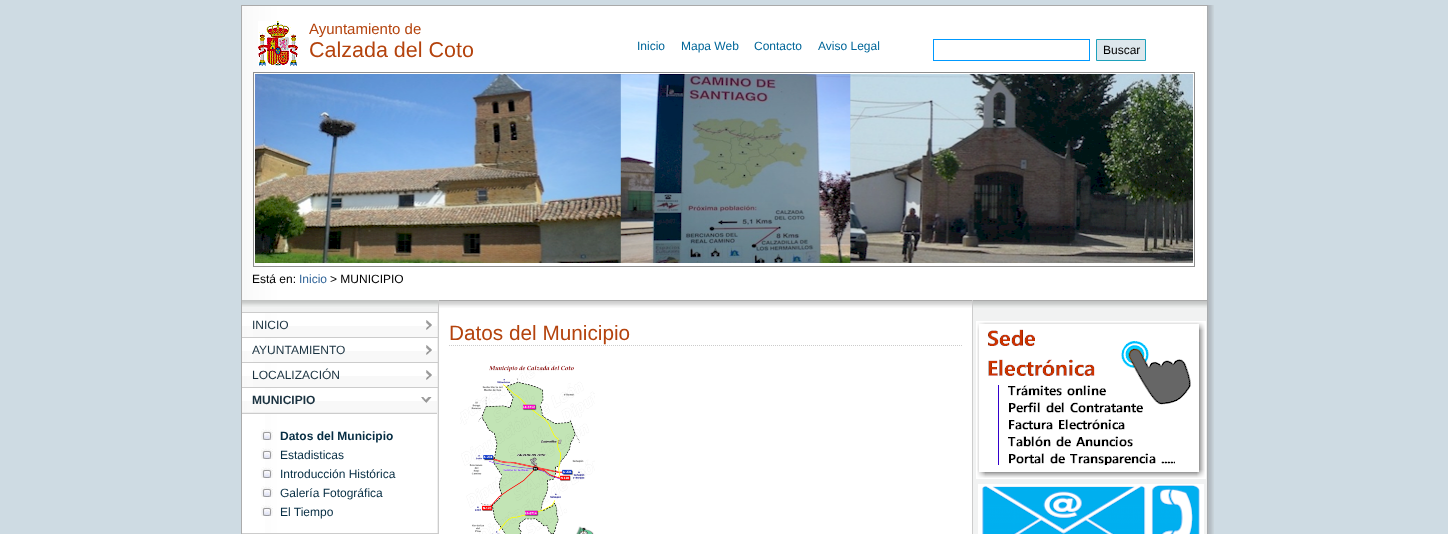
<!DOCTYPE html>
<meta charset="utf-8">
<style>body { margin: 0 } canvas { display: block }</style>
<canvas id="canvas" width="1448" height="534"></canvas>
<img id="img1" src="images/1.png" hidden>
<img id="img2" src="images/2.png" hidden>
<img id="img3" src="images/3.png" hidden>
<img id="img4" src="images/4.png" hidden>
<img id="img5" src="images/5.png" hidden>
<img id="img6" src="images/6.png" hidden>
<img id="img7" src="images/7.png" hidden>
<img id="img8" src="images/8.png" hidden>
<img id="img9" src="images/9.png" hidden>
<img id="img10" src="images/10.png" hidden>
<img id="img11" src="images/11.png" hidden>
<img id="img12" src="images/12.png" hidden>
<img id="img13" src="images/13.png" hidden>
<script>
window.onload = function () {
    const canvas = document.getElementById('canvas');
    const context = canvas.getContext('2d');
    context.miterLimit = 4;
    context.fontKerning = 'normal';

    context.fillStyle = 'rgb(206, 219, 227)';
    context.fillRect(0, 0, 1448, 534);
    context.drawImage(document.getElementById('img1'), 241, 5, 973, 529);
    context.fillStyle = 'rgb(170, 170, 170)';
    context.fillRect(242, 5, 965, 1);
    context.drawImage(document.getElementById('img2'), 258, 21, 40, 45);
    context.strokeStyle = 'rgb(0, 153, 255)';
    context.strokeRect(933.5, 39.5, 156, 21);
    context.fillStyle = 'rgb(221, 231, 236)';
    context.beginPath();
    context.rect(1096.5, 39.5, 49, 21);
    context.fill();
    context.strokeStyle = 'rgb(29, 161, 188)';
    context.stroke();
    context.strokeStyle = 'rgb(143, 143, 143)';
    context.strokeRect(253.5, 72.5, 941, 194);
    context.drawImage(document.getElementById('img3'), 255, 74, 938, 189);
    context.drawImage(document.getElementById('img4'), 973, 308, 234, 226);
    context.fillStyle = 'rgb(241, 242, 242)';
    context.fillRect(242, 307, 196, 5);
    context.drawImage(document.getElementById('img5'), 242, 300, 196, 7);
    context.fillStyle = 'rgb(204, 204, 204)';
    context.fillRect(438, 300, 1, 234);
    context.fillRect(242, 312, 196, 1);
    context.fillRect(242, 337, 196, 1);
    context.fillStyle = 'rgb(255, 255, 255)';
    context.fillRect(242, 313, 23, 13);
    context.fillStyle = 'rgb(248, 248, 248)';
    context.fillRect(253, 326, 184, 11);
    context.fillStyle = 'rgb(238, 238, 238)';
    context.fillRect(437, 313, 1, 24);
    context.drawImage(document.getElementById('img6'), 426, 320, 6, 10);
    context.fillStyle = 'rgb(204, 204, 204)';
    context.fillRect(242, 362, 196, 1);
    context.fillStyle = 'rgb(255, 255, 255)';
    context.fillRect(242, 338, 23, 13);
    context.fillStyle = 'rgb(248, 248, 248)';
    context.fillRect(253, 351, 184, 11);
    context.fillStyle = 'rgb(238, 238, 238)';
    context.fillRect(437, 338, 1, 24);
    context.drawImage(document.getElementById('img6'), 426, 345, 6, 10);
    context.fillStyle = 'rgb(204, 204, 204)';
    context.fillRect(242, 387, 196, 1);
    context.fillStyle = 'rgb(255, 255, 255)';
    context.fillRect(242, 363, 23, 13);
    context.fillStyle = 'rgb(248, 248, 248)';
    context.fillRect(253, 376, 184, 11);
    context.fillStyle = 'rgb(238, 238, 238)';
    context.fillRect(437, 363, 1, 24);
    context.drawImage(document.getElementById('img6'), 426, 370, 6, 10);
    context.fillStyle = 'rgb(204, 204, 204)';
    context.fillRect(242, 533, 196, 1);
    context.fillStyle = 'rgb(255, 255, 255)';
    context.fillRect(242, 388, 23, 13);
    context.fillStyle = 'rgb(248, 248, 248)';
    context.fillRect(253, 401, 184, 11);
    context.fillStyle = 'rgb(238, 238, 238)';
    context.fillRect(437, 388, 1, 25);
    context.fillRect(242, 412, 196, 1);
    context.drawImage(document.getElementById('img7'), 421, 397, 11, 6);
    context.fillStyle = 'rgb(255, 255, 255)';
    context.fillRect(242, 414, 23, 119);
    context.fillStyle = 'rgb(204, 204, 204)';
    context.fillRect(242, 413, 196, 1);
    context.fillStyle = 'rgb(238, 238, 238)';
    context.fillRect(437, 413, 1, 120);
    context.drawImage(document.getElementById('img8'), 261, 429, 12, 11);
    context.drawImage(document.getElementById('img8'), 261, 448, 12, 11);
    context.drawImage(document.getElementById('img8'), 261, 467, 12, 11);
    context.drawImage(document.getElementById('img8'), 261, 486, 12, 11);
    context.drawImage(document.getElementById('img8'), 261, 505, 12, 11);
    context.drawImage(document.getElementById('img9'), 439, 301, 533, 7);
    context.fillStyle = 'rgb(170, 170, 170)';
    context.fillRect(439, 300, 768, 1);
    context.fillStyle = 'rgb(204, 204, 204)';
    context.fillRect(972, 300, 1, 234);
    context.beginPath();
    context.moveTo(449, 345.5);
    context.lineTo(962, 345.5);
    context.strokeStyle = 'rgb(204, 204, 204)';
    context.setLineDash([1, 1]);
    context.stroke();
    context.drawImage(document.getElementById('img10'), 460, 361, 135, 173);
    context.drawImage(document.getElementById('img11'), 973, 301, 234, 7);
    context.drawImage(document.getElementById('img12'), 976, 321, 230, 158);
    context.drawImage(document.getElementById('img13'), 978, 484, 226, 50);
    context.font = '15px Liberation Sans';
    context.fillStyle = 'rgb(180, 67, 13)';
    context.fillText('Ayuntamiento de', 309, 34);
    context.font = '21.5px Liberation Sans';
    context.fillText('Calzada del Coto', 309, 57);
    context.font = '12px Liberation Sans';
    context.fillStyle = 'rgb(0, 102, 153)';
    context.fillText('Inicio', 637, 50);
    context.fillText('Mapa Web', 681, 50);
    context.fillText('Contacto', 754, 50);
    context.fillText('Aviso Legal', 818, 50);
    context.fillStyle = 'rgb(0, 0, 0)';
    context.fillText('Buscar', 1103, 54);
    context.fillText('Está en:', 252, 283);
    context.fillStyle = 'rgb(51, 102, 153)';
    context.fillText('Inicio', 299, 283);
    context.fillStyle = 'rgb(0, 0, 0)';
    context.fillText('> MUNICIPIO', 330, 283);
    context.fillStyle = 'rgb(26, 50, 64)';
    context.fillText('INICIO', 252, 329);
    context.fillText('AYUNTAMIENTO', 252, 354);
    context.fillText('LOCALIZACIÓN', 252, 379);
    context.font = 'bold 12px Liberation Sans';
    context.fillText('MUNICIPIO', 252, 404);
    context.fillStyle = 'rgb(6, 45, 67)';
    context.fillText('Datos del Municipio', 280, 440);
    context.font = '12px Liberation Sans';
    context.fillText('Estadisticas', 280, 459);
    context.fillText('Introducción Histórica', 280, 478);
    context.fillText('Galería Fotográfica', 280, 497);
    context.fillText('El Tiempo', 280, 516);
    context.font = '20.75px Liberation Sans';
    context.fillStyle = 'rgb(180, 67, 13)';
    context.fillText('Datos del Municipio', 449, 340);
};
</script>
